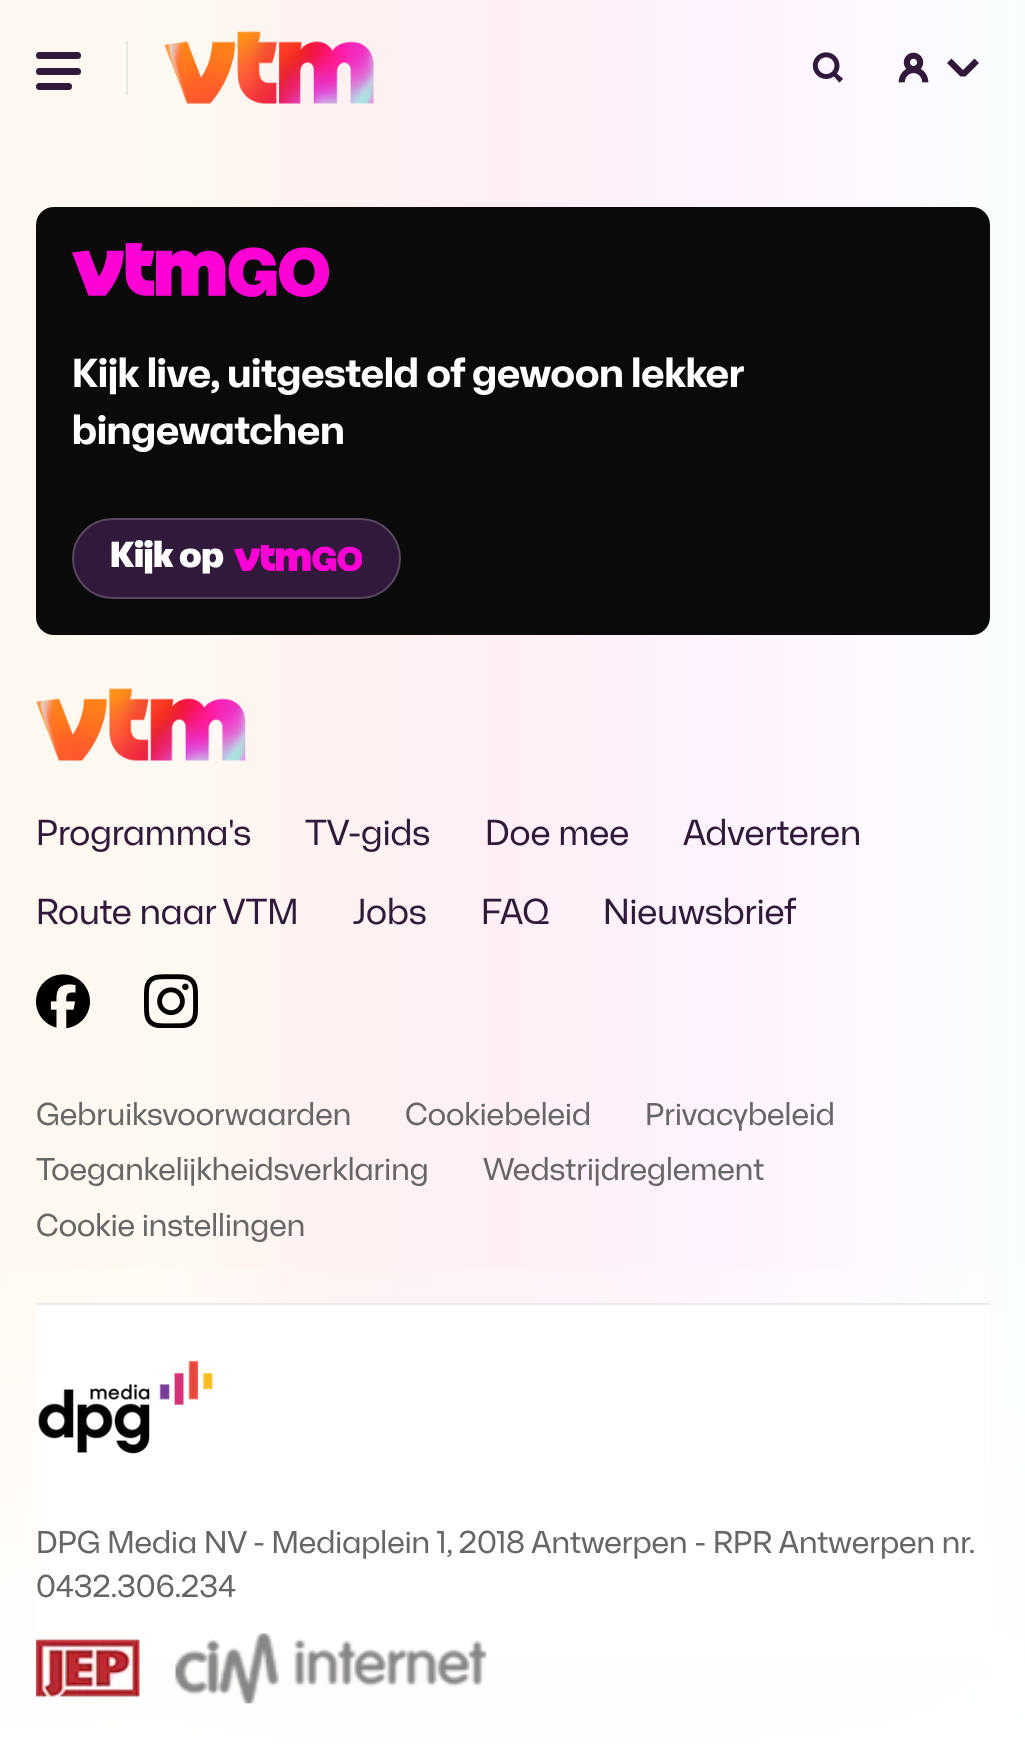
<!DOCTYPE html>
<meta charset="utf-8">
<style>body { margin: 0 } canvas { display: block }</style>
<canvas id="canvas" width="1025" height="1762"></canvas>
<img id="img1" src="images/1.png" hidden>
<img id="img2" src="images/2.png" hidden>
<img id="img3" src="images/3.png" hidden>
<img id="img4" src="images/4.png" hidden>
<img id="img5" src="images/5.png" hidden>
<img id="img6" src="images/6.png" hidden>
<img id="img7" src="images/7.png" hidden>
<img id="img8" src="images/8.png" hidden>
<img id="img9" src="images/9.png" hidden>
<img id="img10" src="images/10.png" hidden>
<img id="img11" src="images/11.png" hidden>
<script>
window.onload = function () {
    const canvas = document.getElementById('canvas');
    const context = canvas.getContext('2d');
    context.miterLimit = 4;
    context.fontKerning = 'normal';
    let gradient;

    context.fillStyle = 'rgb(255, 255, 255)';
    context.fillRect(0, 0, 1025, 1762);
    gradient = context.createLinearGradient(0, 882, 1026, 882);
    gradient.addColorStop(0, 'rgb(255, 248, 240)');
    gradient.addColorStop(0.17, 'rgb(255, 249, 243)');
    gradient.addColorStop(0.33, 'rgb(254, 241, 240)');
    gradient.addColorStop(0.5, 'rgb(254, 240, 245)');
    gradient.addColorStop(0.67, 'rgb(254, 242, 253)');
    gradient.addColorStop(0.83, 'rgb(254, 247, 255)');
    gradient.addColorStop(1, 'rgb(248, 254, 254)');
    context.fillStyle = gradient;
    context.fillRect(0, 0, 1025, 1760);
    gradient = context.createLinearGradient(513, 0, 513, 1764);
    gradient.addColorStop(0.66, 'rgba(255, 255, 255, 0)');
    gradient.addColorStop(1, 'rgb(255, 255, 255)');
    context.fillStyle = gradient;
    context.fillRect(0, 1269, 1025, 491);
    context.fillStyle = 'rgb(231, 231, 231)';
    context.fillRect(126, 41, 2, 54);
    context.fillStyle = 'rgb(49, 25, 59)';
    context.beginPath();
    context.roundRect(36, 52, 45, 7, 3.5);
    context.fill();
    context.beginPath();
    context.roundRect(36, 68, 45, 7, 3.5);
    context.fill();
    context.beginPath();
    context.roundRect(36, 83, 36, 7, 3.5);
    context.fill();
    context.drawImage(document.getElementById('img1'), 164, 31, 210, 73);
    context.drawImage(document.getElementById('img2'), 812, 52, 32, 31);
    context.drawImage(document.getElementById('img3'), 898, 52, 31, 31);
    context.beginPath();
    context.moveTo(965.5, 76.5);
    context.lineTo(960.5, 76.5);
    context.lineTo(947, 63);
    context.lineTo(951.5, 58.5);
    context.lineTo(963, 70);
    context.lineTo(974.5, 58.5);
    context.lineTo(979, 63);
    context.closePath();
    context.fill();
    context.fillStyle = 'rgb(10, 10, 10)';
    context.beginPath();
    context.roundRect(36, 207, 954, 428, 18);
    context.fill();
    context.drawImage(document.getElementById('img4'), 72, 243, 257, 54);
    context.fillStyle = 'rgb(49, 25, 59)';
    context.beginPath();
    context.roundRect(72, 518, 329, 81, 40.5);
    context.fill();
    context.beginPath();
    context.roundRect(73, 519, 327, 79, 39.5);
    context.strokeStyle = 'rgba(255, 255, 255, 0.2)';
    context.lineWidth = 2;
    context.stroke();
    context.drawImage(document.getElementById('img5'), 234, 545, 128, 26);
    context.drawImage(document.getElementById('img6'), 36, 688, 210, 73);
    context.drawImage(document.getElementById('img7'), 36, 974, 54, 54);
    context.drawImage(document.getElementById('img8'), 144, 974, 54, 54);
    context.fillStyle = 'rgb(234, 234, 234)';
    context.fillRect(36, 1303, 954, 2);
    context.fillStyle = 'rgb(255, 255, 255)';
    context.fillRect(36, 1305, 954, 354);
    context.drawImage(document.getElementById('img9'), 38, 1360, 175, 94);
    context.drawImage(document.getElementById('img10'), 36, 1639, 104, 58);
    context.drawImage(document.getElementById('img11'), 175, 1633, 311, 71);
    context.font = 'bold 40.5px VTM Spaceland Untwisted';
    context.fillText('Kijk live, uitgesteld of gewoon lekker', 72, 387);
    context.fillText('bingewatchen', 72, 444);
    context.font = '900 36px VTM Spaceland Untwisted';
    context.fillText('Kijk op', 110, 567);
    context.font = '36px VTM Spaceland Untwisted';
    context.fillStyle = 'rgb(49, 25, 59)';
    context.fillText('Programma\'s', 36, 845);
    context.fillText('TV-gids', 305, 845);
    context.fillText('Doe mee', 485, 845);
    context.fillText('Adverteren', 683, 845);
    context.fillText('Route naar VTM', 36, 924);
    context.fillText('Jobs', 353, 924);
    context.fillText('FAQ', 481, 924);
    context.fillText('Nieuwsbrief', 603, 924);
    context.font = '31.5px VTM Spaceland Untwisted';
    context.fillStyle = 'rgb(102, 102, 102)';
    context.fillText('Gebruiksvoorwaarden', 36, 1125);
    context.fillText('Cookiebeleid', 405, 1125);
    context.fillText('Privacybeleid', 645, 1125);
    context.fillText('Toegankelijkheidsverklaring', 36, 1180);
    context.fillText('Wedstrijdreglement', 483, 1180);
    context.fillText('Cookie instellingen', 36, 1236);
    context.fillText('DPG Media NV - Mediaplein 1, 2018 Antwerpen -', 36, 1553);
    context.fillText('RPR Antwerpen nr.', 713, 1553);
    context.fillText('0432.306.234', 36, 1597);
};
</script>
